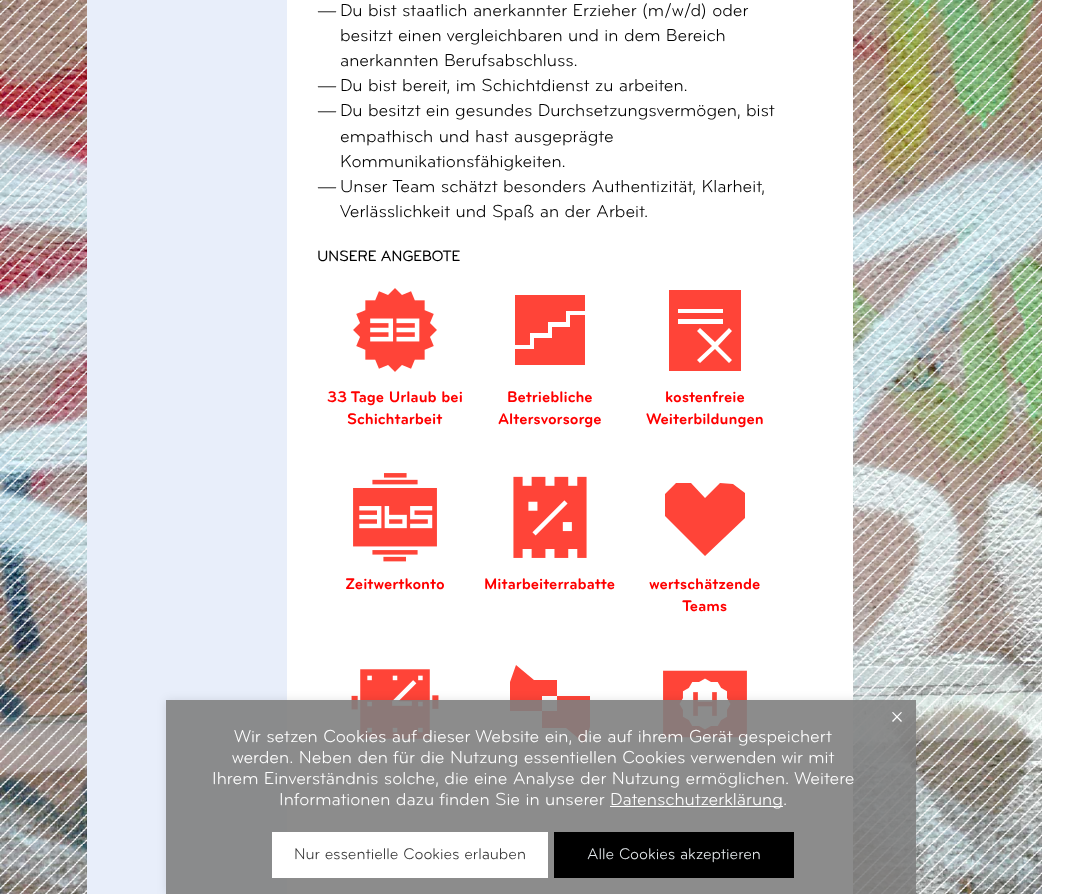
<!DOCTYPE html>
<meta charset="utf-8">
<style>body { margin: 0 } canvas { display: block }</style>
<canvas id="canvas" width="1082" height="894"></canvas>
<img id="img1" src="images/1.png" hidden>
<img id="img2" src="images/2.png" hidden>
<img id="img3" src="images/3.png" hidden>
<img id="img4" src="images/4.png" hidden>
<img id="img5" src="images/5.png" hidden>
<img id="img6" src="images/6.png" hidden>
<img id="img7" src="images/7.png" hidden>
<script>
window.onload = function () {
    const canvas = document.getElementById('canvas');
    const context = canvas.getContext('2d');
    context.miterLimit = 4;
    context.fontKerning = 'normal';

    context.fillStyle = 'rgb(255, 255, 255)';
    context.fillRect(0, 0, 1082, 894);
    context.drawImage(document.getElementById('img1'), 0, 0, 1042, 894);
    context.drawImage(document.getElementById('img2'), 0, 0, 1042, 894);
    context.fillStyle = 'rgb(232, 238, 250)';
    context.fillRect(87, 0, 200, 894);
    context.fillStyle = 'rgb(255, 255, 255)';
    context.fillRect(287, 0, 566, 894);
    context.drawImage(document.getElementById('img3'), 353, 288, 84, 84);
    context.fillStyle = 'rgb(255, 68, 56)';
    context.beginPath();
    context.moveTo(515, 349);
    context.lineTo(515, 365);
    context.lineTo(585, 365);
    context.lineTo(585, 315);
    context.lineTo(570, 315);
    context.lineTo(570, 327);
    context.lineTo(552, 327);
    context.lineTo(552, 338);
    context.lineTo(534, 338);
    context.lineTo(534, 349);
    context.closePath();
    context.moveTo(585, 311);
    context.lineTo(585, 295);
    context.lineTo(515, 295);
    context.lineTo(515, 345);
    context.lineTo(530, 345);
    context.lineTo(530, 333);
    context.lineTo(548, 333);
    context.lineTo(548, 322);
    context.lineTo(566, 322);
    context.lineTo(566, 311);
    context.closePath();
    context.fill();
    context.beginPath();
    context.moveTo(718, 346);
    context.lineTo(732, 360);
    context.lineTo(729, 363);
    context.lineTo(715, 349);
    context.lineTo(700, 363);
    context.lineTo(697, 360);
    context.lineTo(712, 346);
    context.lineTo(697, 331);
    context.lineTo(700, 328);
    context.lineTo(715, 342);
    context.lineTo(729, 328);
    context.lineTo(732, 331);
    context.closePath();
    context.moveTo(723, 324);
    context.lineTo(678, 324);
    context.lineTo(678, 319);
    context.lineTo(723, 319);
    context.closePath();
    context.moveTo(723, 313);
    context.lineTo(678, 313);
    context.lineTo(678, 309);
    context.lineTo(723, 309);
    context.closePath();
    context.moveTo(741, 290);
    context.lineTo(669, 290);
    context.lineTo(669, 371);
    context.lineTo(741, 371);
    context.closePath();
    context.fill();
    context.drawImage(document.getElementById('img4'), 353, 473, 84, 89);
    context.drawImage(document.getElementById('img5'), 513, 476, 74, 82);
    context.beginPath();
    context.moveTo(691, 483);
    context.lineTo(705, 498);
    context.lineTo(720, 483);
    context.lineTo(733, 484);
    context.lineTo(745, 493);
    context.lineTo(745, 518);
    context.lineTo(705, 556);
    context.lineTo(665, 516);
    context.lineTo(665, 494);
    context.lineTo(676, 483);
    context.closePath();
    context.fill();
    context.drawImage(document.getElementById('img6'), 351, 669, 88, 70);
    context.beginPath();
    context.moveTo(557, 711);
    context.lineTo(542, 711);
    context.lineTo(542, 696);
    context.lineTo(557, 696);
    context.closePath();
    context.moveTo(590, 727);
    context.lineTo(590, 696);
    context.lineTo(557, 696);
    context.lineTo(557, 680);
    context.lineTo(534, 680);
    context.lineTo(516, 665);
    context.lineTo(510, 682);
    context.lineTo(510, 711);
    context.lineTo(542, 711);
    context.lineTo(542, 728);
    context.lineTo(566, 728);
    context.lineTo(584, 743);
    context.closePath();
    context.fill();
    context.drawImage(document.getElementById('img7'), 663, 670, 84, 68);
    context.save();
    context.beginPath();
    context.moveTo(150, 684);
    context.lineTo(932, 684);
    context.lineTo(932, 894);
    context.lineTo(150, 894);
    context.closePath();
    context.moveTo(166, 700);
    context.lineTo(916, 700);
    context.lineTo(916, 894);
    context.lineTo(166, 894);
    context.closePath();
    context.clip('evenodd');
    context.fillStyle = 'rgba(0, 0, 0, 0.1)';
    context.filter = 'blur(5px)';
    context.beginPath();
    context.rect(166, 700, 750, 194);
    context.fill();
    context.filter = 'none';
    context.restore();
    context.fillStyle = 'rgba(128, 128, 128, 0.9)';
    context.fillRect(166, 700, 750, 194);
    context.fillStyle = 'rgb(255, 255, 255)';
    context.beginPath();
    context.moveTo(901, 712);
    context.lineTo(902, 712.5);
    context.lineTo(893, 722);
    context.lineTo(892, 721);
    context.closePath();
    context.fill();
    context.beginPath();
    context.moveTo(892, 712.5);
    context.lineTo(893, 712);
    context.lineTo(902, 721);
    context.lineTo(901, 722);
    context.closePath();
    context.fill();
    context.fillRect(610, 806, 173, 1);
    context.fillRect(272, 832, 276, 46);
    context.fillStyle = 'rgb(0, 0, 0)';
    context.fillRect(554, 832, 240, 46);
    context.font = '18px Liberation Serif';
    context.fillText('―', 318, 16);
    context.font = '18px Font';
    context.fillText('Du bist staatlich anerkannter Erzieher (m/w/d) oder', 340, 16);
    context.fillText('besitzt einen vergleichbaren und in dem Bereich', 340, 41);
    context.fillText('anerkannten Berufsabschluss.', 340, 66);
    context.font = '18px Liberation Serif';
    context.fillText('―', 318, 91);
    context.font = '18px Font';
    context.fillText('Du bist bereit, im Schichtdienst zu arbeiten.', 340, 91);
    context.font = '18px Liberation Serif';
    context.fillText('―', 318, 116);
    context.font = '18px Font';
    context.fillText('Du besitzt ein gesundes Durchsetzungsvermögen, bist', 340, 116);
    context.fillText('empathisch und hast ausgeprägte', 340, 142);
    context.fillText('Kommunikationsfähigkeiten.', 340, 167);
    context.font = '18px Liberation Serif';
    context.fillText('―', 318, 192);
    context.font = '18px Font';
    context.fillText('Unser Team schätzt besonders Authentizität, Klarheit,', 340, 192);
    context.fillText('Verlässlichkeit und Spaß an der Arbeit.', 340, 217);
    context.font = 'bold 15px Font';
    context.fillText('UNSERE ANGEBOTE', 317, 261);
    context.font = 'bold 16px "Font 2"';
    context.fillStyle = 'rgb(255, 0, 0)';
    context.fillText('33 Tage Urlaub bei', 327, 402);
    context.fillText('Schichtarbeit', 347, 424);
    context.fillText('Betriebliche', 507, 402);
    context.fillText('Altersvorsorge', 498, 424);
    context.fillText('kostenfreie', 665, 402);
    context.fillText('Weiterbildungen', 646, 424);
    context.fillText('Zeitwertkonto', 345, 589);
    context.fillText('Mitarbeiterrabatte', 484, 589);
    context.fillText('wertschätzende', 649, 589);
    context.fillText('Teams', 682, 611);
    context.font = '18px Font';
    context.fillStyle = 'rgb(255, 255, 255)';
    context.fillText('Wir setzen Cookies auf dieser Website ein, die auf ihrem Gerät gespeichert', 234, 742);
    context.fillText('werden. Neben den für die Nutzung essentiellen Cookies verwenden wir mit', 232, 763);
    context.fillText('Ihrem Einverständnis solche, die eine Analyse der Nutzung ermöglichen. Weitere', 212, 784);
    context.fillText('Informationen dazu finden Sie in unserer', 279, 805);
    context.fillText('Datenschutzerklärung.', 610, 805);
    context.font = '16px Font';
    context.fillStyle = 'rgb(51, 51, 51)';
    context.fillText('Nur essentielle Cookies erlauben', 294, 859);
    context.fillStyle = 'rgb(229, 234, 237)';
    context.fillText('Alle Cookies akzeptieren', 587, 859);
};
</script>
